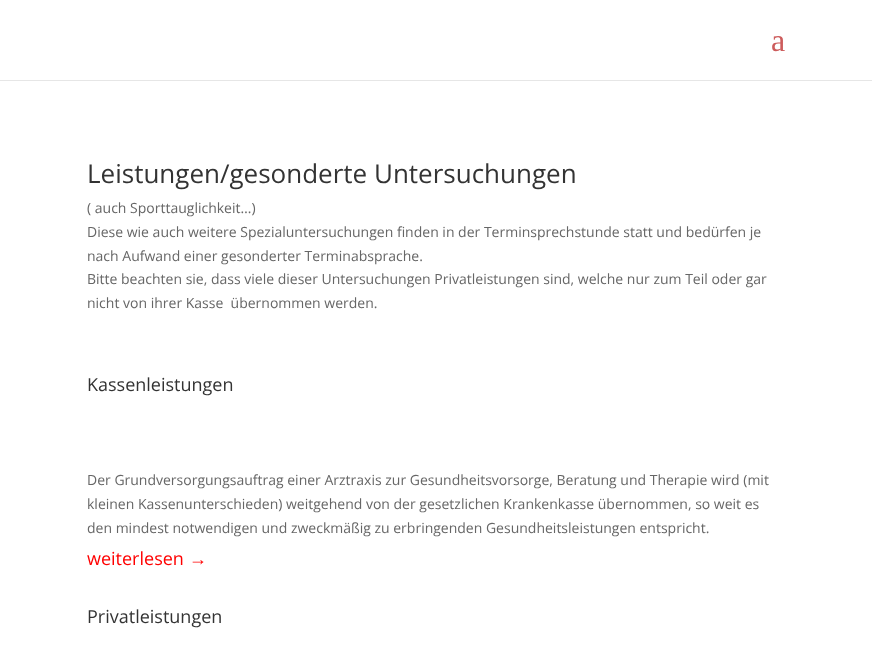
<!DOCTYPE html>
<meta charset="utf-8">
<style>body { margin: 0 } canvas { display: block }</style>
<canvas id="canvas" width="872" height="645"></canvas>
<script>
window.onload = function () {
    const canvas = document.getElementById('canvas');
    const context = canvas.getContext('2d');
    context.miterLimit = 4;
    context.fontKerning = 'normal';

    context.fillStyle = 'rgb(255, 255, 255)';
    context.fillRect(0, 0, 872, 645);
    context.fillStyle = 'rgb(230, 230, 230)';
    context.fillRect(0, 80, 872, 1);
    context.font = '32px Liberation Serif';
    context.fillStyle = 'rgb(205, 92, 92)';
    context.fillText('a', 771, 51);
    context.font = '26px Open Sans';
    context.fillStyle = 'rgb(51, 51, 51)';
    context.fillText('Leistungen/gesonderte Untersuchungen', 87, 183);
    context.font = '14px Open Sans';
    context.fillStyle = 'rgb(102, 102, 102)';
    context.fillText('( auch Sporttauglichkeit…)', 87, 213);
    context.fillText('Diese wie auch weitere Spezialuntersuchungen finden in der Terminsprechstunde statt und bedürfen je', 87, 237);
    context.fillText('nach Aufwand einer gesonderter Terminabsprache.', 87, 261);
    context.fillText('Bitte beachten sie, dass viele dieser Untersuchungen Privatleistungen sind, welche nur zum Teil oder gar', 87, 284);
    context.fillText('nicht von ihrer Kasse  übernommen werden.', 87, 308);
    context.font = '18px Open Sans';
    context.fillStyle = 'rgb(51, 51, 51)';
    context.fillText('Kassenleistungen', 87, 391);
    context.font = '14px Open Sans';
    context.fillStyle = 'rgb(102, 102, 102)';
    context.fillText('Der Grundversorgungsauftrag einer Arztraxis zur Gesundheitsvorsorge, Beratung und Therapie wird (mit', 87, 485);
    context.fillText('kleinen Kassenunterschieden) weitgehend von der gesetzlichen Krankenkasse übernommen, so weit es', 87, 509);
    context.fillText('den mindest notwendigen und zweckmäßig zu erbringenden Gesundheitsleistungen entspricht.', 87, 533);
    context.font = '18px Open Sans';
    context.fillStyle = 'rgb(255, 0, 0)';
    context.fillText('weiterlesen', 87, 565);
    context.font = '18px Liberation Sans';
    context.fillText('→', 189, 565);
    context.font = '18px Open Sans';
    context.fillStyle = 'rgb(51, 51, 51)';
    context.fillText('Privatleistungen', 87, 623);
};
</script>
